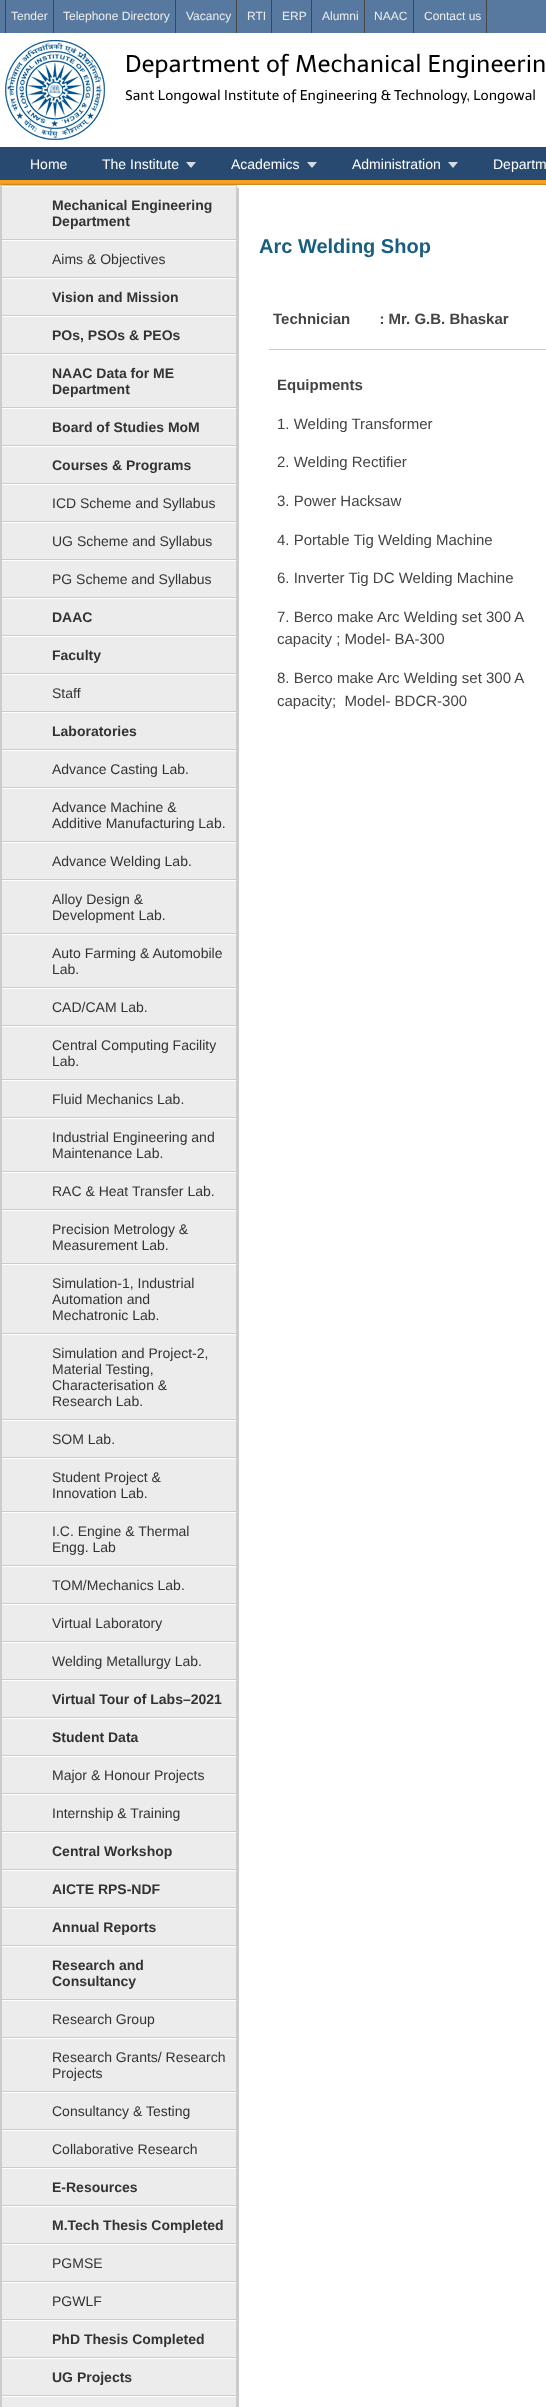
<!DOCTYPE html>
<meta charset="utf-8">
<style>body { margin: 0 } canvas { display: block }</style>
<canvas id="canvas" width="546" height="2407"></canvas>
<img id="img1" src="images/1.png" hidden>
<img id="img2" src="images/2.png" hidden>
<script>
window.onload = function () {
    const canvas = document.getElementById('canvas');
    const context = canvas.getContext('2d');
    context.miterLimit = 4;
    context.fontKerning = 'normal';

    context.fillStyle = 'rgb(88, 121, 159)';
    context.fillRect(0, 0, 546, 2407);
    context.fillStyle = 'rgb(70, 70, 70)';
    context.fillRect(53, 0, 1, 33);
    context.fillRect(5, 0, 1, 33);
    context.fillRect(175, 0, 1, 33);
    context.fillRect(236, 0, 1, 33);
    context.fillRect(271, 0, 1, 33);
    context.fillRect(311, 0, 1, 33);
    context.fillRect(364, 0, 1, 33);
    context.fillRect(413, 0, 1, 33);
    context.fillRect(486, 0, 1, 33);
    context.fillStyle = 'rgb(255, 255, 255)';
    context.fillRect(0, 33, 546, 114);
    context.drawImage(document.getElementById('img1'), 5, 40, 100, 100);
    context.fillStyle = 'rgb(41, 74, 112)';
    context.fillRect(0, 147, 546, 33);
    context.fillStyle = 'rgb(244, 160, 36)';
    context.fillRect(0, 180, 546, 5);
    context.drawImage(document.getElementById('img2'), 186, 162, 10, 6);
    context.drawImage(document.getElementById('img2'), 307, 162, 10, 6);
    context.drawImage(document.getElementById('img2'), 448, 162, 10, 6);
    context.fillStyle = 'rgb(0, 0, 0)';
    context.filter = 'blur(1.5px)';
    context.beginPath();
    context.rect(1, 186, 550, 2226);
    context.fill();
    context.filter = 'none';
    context.fillStyle = 'rgb(255, 255, 255)';
    context.fillRect(237, 185, 309, 2222);
    context.fillStyle = 'rgb(204, 204, 204)';
    context.fillRect(0, 185, 1, 2222);
    context.fillStyle = 'rgb(236, 236, 236)';
    context.beginPath();
    context.moveTo(1, 185);
    context.lineTo(234, 185);
    context.bezierCurveTo(237, 185, 239, 187, 239, 190);
    context.lineTo(239, 2407);
    context.bezierCurveTo(239, 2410, 237, 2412, 234, 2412);
    context.lineTo(1, 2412);
    context.closePath();
    context.fill();
    context.fillStyle = 'rgb(204, 204, 204)';
    context.fillRect(237, 188, 2, 2219);
    context.fillRect(1, 185, 236, 1);
    context.fillRect(236, 185, 1, 2222);
    context.fillRect(1, 185, 1, 2222);
    context.fillStyle = 'rgb(255, 255, 255)';
    context.fillRect(2, 186, 234, 1);
    context.fillStyle = 'rgb(204, 204, 204)';
    context.fillRect(2, 239, 234, 1);
    context.fillStyle = 'rgb(255, 255, 255)';
    context.fillRect(2, 240, 234, 1);
    context.fillStyle = 'rgb(204, 204, 204)';
    context.fillRect(2, 277, 234, 1);
    context.fillStyle = 'rgb(255, 255, 255)';
    context.fillRect(2, 278, 234, 1);
    context.fillStyle = 'rgb(204, 204, 204)';
    context.fillRect(2, 315, 234, 1);
    context.fillStyle = 'rgb(255, 255, 255)';
    context.fillRect(2, 316, 234, 1);
    context.fillStyle = 'rgb(204, 204, 204)';
    context.fillRect(2, 353, 234, 1);
    context.fillStyle = 'rgb(255, 255, 255)';
    context.fillRect(2, 354, 234, 1);
    context.fillStyle = 'rgb(204, 204, 204)';
    context.fillRect(2, 407, 234, 1);
    context.fillStyle = 'rgb(255, 255, 255)';
    context.fillRect(2, 408, 234, 1);
    context.fillStyle = 'rgb(204, 204, 204)';
    context.fillRect(2, 445, 234, 1);
    context.fillStyle = 'rgb(255, 255, 255)';
    context.fillRect(2, 446, 234, 1);
    context.fillStyle = 'rgb(204, 204, 204)';
    context.fillRect(2, 483, 234, 1);
    context.fillStyle = 'rgb(255, 255, 255)';
    context.fillRect(2, 484, 234, 1);
    context.fillStyle = 'rgb(204, 204, 204)';
    context.fillRect(2, 521, 234, 1);
    context.fillStyle = 'rgb(255, 255, 255)';
    context.fillRect(2, 522, 234, 1);
    context.fillStyle = 'rgb(204, 204, 204)';
    context.fillRect(2, 559, 234, 1);
    context.fillStyle = 'rgb(255, 255, 255)';
    context.fillRect(2, 560, 234, 1);
    context.fillStyle = 'rgb(204, 204, 204)';
    context.fillRect(2, 597, 234, 1);
    context.fillStyle = 'rgb(255, 255, 255)';
    context.fillRect(2, 598, 234, 1);
    context.fillStyle = 'rgb(204, 204, 204)';
    context.fillRect(2, 635, 234, 1);
    context.fillStyle = 'rgb(255, 255, 255)';
    context.fillRect(2, 636, 234, 1);
    context.fillStyle = 'rgb(204, 204, 204)';
    context.fillRect(2, 673, 234, 1);
    context.fillStyle = 'rgb(255, 255, 255)';
    context.fillRect(2, 674, 234, 1);
    context.fillStyle = 'rgb(204, 204, 204)';
    context.fillRect(2, 711, 234, 1);
    context.fillStyle = 'rgb(255, 255, 255)';
    context.fillRect(2, 712, 234, 1);
    context.fillStyle = 'rgb(204, 204, 204)';
    context.fillRect(2, 749, 234, 1);
    context.fillStyle = 'rgb(255, 255, 255)';
    context.fillRect(2, 750, 234, 1);
    context.fillStyle = 'rgb(204, 204, 204)';
    context.fillRect(2, 787, 234, 1);
    context.fillStyle = 'rgb(255, 255, 255)';
    context.fillRect(2, 788, 234, 1);
    context.fillStyle = 'rgb(204, 204, 204)';
    context.fillRect(2, 841, 234, 1);
    context.fillStyle = 'rgb(255, 255, 255)';
    context.fillRect(2, 842, 234, 1);
    context.fillStyle = 'rgb(204, 204, 204)';
    context.fillRect(2, 879, 234, 1);
    context.fillStyle = 'rgb(255, 255, 255)';
    context.fillRect(2, 880, 234, 1);
    context.fillStyle = 'rgb(204, 204, 204)';
    context.fillRect(2, 933, 234, 1);
    context.fillStyle = 'rgb(255, 255, 255)';
    context.fillRect(2, 934, 234, 1);
    context.fillStyle = 'rgb(204, 204, 204)';
    context.fillRect(2, 987, 234, 1);
    context.fillStyle = 'rgb(255, 255, 255)';
    context.fillRect(2, 988, 234, 1);
    context.fillStyle = 'rgb(204, 204, 204)';
    context.fillRect(2, 1025, 234, 1);
    context.fillStyle = 'rgb(255, 255, 255)';
    context.fillRect(2, 1026, 234, 1);
    context.fillStyle = 'rgb(204, 204, 204)';
    context.fillRect(2, 1079, 234, 1);
    context.fillStyle = 'rgb(255, 255, 255)';
    context.fillRect(2, 1080, 234, 1);
    context.fillStyle = 'rgb(204, 204, 204)';
    context.fillRect(2, 1117, 234, 1);
    context.fillStyle = 'rgb(255, 255, 255)';
    context.fillRect(2, 1118, 234, 1);
    context.fillStyle = 'rgb(204, 204, 204)';
    context.fillRect(2, 1171, 234, 1);
    context.fillStyle = 'rgb(255, 255, 255)';
    context.fillRect(2, 1172, 234, 1);
    context.fillStyle = 'rgb(204, 204, 204)';
    context.fillRect(2, 1209, 234, 1);
    context.fillStyle = 'rgb(255, 255, 255)';
    context.fillRect(2, 1210, 234, 1);
    context.fillStyle = 'rgb(204, 204, 204)';
    context.fillRect(2, 1263, 234, 1);
    context.fillStyle = 'rgb(255, 255, 255)';
    context.fillRect(2, 1264, 234, 1);
    context.fillStyle = 'rgb(204, 204, 204)';
    context.fillRect(2, 1333, 234, 1);
    context.fillStyle = 'rgb(255, 255, 255)';
    context.fillRect(2, 1334, 234, 1);
    context.fillStyle = 'rgb(204, 204, 204)';
    context.fillRect(2, 1419, 234, 1);
    context.fillStyle = 'rgb(255, 255, 255)';
    context.fillRect(2, 1420, 234, 1);
    context.fillStyle = 'rgb(204, 204, 204)';
    context.fillRect(2, 1457, 234, 1);
    context.fillStyle = 'rgb(255, 255, 255)';
    context.fillRect(2, 1458, 234, 1);
    context.fillStyle = 'rgb(204, 204, 204)';
    context.fillRect(2, 1511, 234, 1);
    context.fillStyle = 'rgb(255, 255, 255)';
    context.fillRect(2, 1512, 234, 1);
    context.fillStyle = 'rgb(204, 204, 204)';
    context.fillRect(2, 1565, 234, 1);
    context.fillStyle = 'rgb(255, 255, 255)';
    context.fillRect(2, 1566, 234, 1);
    context.fillStyle = 'rgb(204, 204, 204)';
    context.fillRect(2, 1603, 234, 1);
    context.fillStyle = 'rgb(255, 255, 255)';
    context.fillRect(2, 1604, 234, 1);
    context.fillStyle = 'rgb(204, 204, 204)';
    context.fillRect(2, 1641, 234, 1);
    context.fillStyle = 'rgb(255, 255, 255)';
    context.fillRect(2, 1642, 234, 1);
    context.fillStyle = 'rgb(204, 204, 204)';
    context.fillRect(2, 1679, 234, 1);
    context.fillStyle = 'rgb(255, 255, 255)';
    context.fillRect(2, 1680, 234, 1);
    context.fillStyle = 'rgb(204, 204, 204)';
    context.fillRect(2, 1717, 234, 1);
    context.fillStyle = 'rgb(255, 255, 255)';
    context.fillRect(2, 1718, 234, 1);
    context.fillStyle = 'rgb(204, 204, 204)';
    context.fillRect(2, 1755, 234, 1);
    context.fillStyle = 'rgb(255, 255, 255)';
    context.fillRect(2, 1756, 234, 1);
    context.fillStyle = 'rgb(204, 204, 204)';
    context.fillRect(2, 1793, 234, 1);
    context.fillStyle = 'rgb(255, 255, 255)';
    context.fillRect(2, 1794, 234, 1);
    context.fillStyle = 'rgb(204, 204, 204)';
    context.fillRect(2, 1831, 234, 1);
    context.fillStyle = 'rgb(255, 255, 255)';
    context.fillRect(2, 1832, 234, 1);
    context.fillStyle = 'rgb(204, 204, 204)';
    context.fillRect(2, 1869, 234, 1);
    context.fillStyle = 'rgb(255, 255, 255)';
    context.fillRect(2, 1870, 234, 1);
    context.fillStyle = 'rgb(204, 204, 204)';
    context.fillRect(2, 1907, 234, 1);
    context.fillStyle = 'rgb(255, 255, 255)';
    context.fillRect(2, 1908, 234, 1);
    context.fillStyle = 'rgb(204, 204, 204)';
    context.fillRect(2, 1945, 234, 1);
    context.fillStyle = 'rgb(255, 255, 255)';
    context.fillRect(2, 1946, 234, 1);
    context.fillStyle = 'rgb(204, 204, 204)';
    context.fillRect(2, 1999, 234, 1);
    context.fillStyle = 'rgb(255, 255, 255)';
    context.fillRect(2, 2000, 234, 1);
    context.fillStyle = 'rgb(204, 204, 204)';
    context.fillRect(2, 2037, 234, 1);
    context.fillStyle = 'rgb(255, 255, 255)';
    context.fillRect(2, 2038, 234, 1);
    context.fillStyle = 'rgb(204, 204, 204)';
    context.fillRect(2, 2091, 234, 1);
    context.fillStyle = 'rgb(255, 255, 255)';
    context.fillRect(2, 2092, 234, 1);
    context.fillStyle = 'rgb(204, 204, 204)';
    context.fillRect(2, 2129, 234, 1);
    context.fillStyle = 'rgb(255, 255, 255)';
    context.fillRect(2, 2130, 234, 1);
    context.fillStyle = 'rgb(204, 204, 204)';
    context.fillRect(2, 2167, 234, 1);
    context.fillStyle = 'rgb(255, 255, 255)';
    context.fillRect(2, 2168, 234, 1);
    context.fillStyle = 'rgb(204, 204, 204)';
    context.fillRect(2, 2205, 234, 1);
    context.fillStyle = 'rgb(255, 255, 255)';
    context.fillRect(2, 2206, 234, 1);
    context.fillStyle = 'rgb(204, 204, 204)';
    context.fillRect(2, 2243, 234, 1);
    context.fillStyle = 'rgb(255, 255, 255)';
    context.fillRect(2, 2244, 234, 1);
    context.fillStyle = 'rgb(204, 204, 204)';
    context.fillRect(2, 2281, 234, 1);
    context.fillStyle = 'rgb(255, 255, 255)';
    context.fillRect(2, 2282, 234, 1);
    context.fillStyle = 'rgb(204, 204, 204)';
    context.fillRect(2, 2319, 234, 1);
    context.fillStyle = 'rgb(255, 255, 255)';
    context.fillRect(2, 2320, 234, 1);
    context.fillStyle = 'rgb(204, 204, 204)';
    context.fillRect(2, 2357, 234, 1);
    context.fillStyle = 'rgb(255, 255, 255)';
    context.fillRect(2, 2358, 234, 1);
    context.fillStyle = 'rgb(204, 204, 204)';
    context.fillRect(2, 2395, 234, 1);
    context.fillStyle = 'rgb(255, 255, 255)';
    context.fillRect(2, 2396, 234, 1);
    context.fillStyle = 'rgb(204, 204, 204)';
    context.fillRect(269, 349, 277, 1);
    context.font = '12px Liberation Sans';
    context.fillStyle = 'rgb(238, 238, 238)';
    context.fillText('Tender', 11, 20);
    context.fillText('Telephone Directory', 63, 20);
    context.fillText('Vacancy', 186, 20);
    context.fillText('RTI', 247, 20);
    context.fillText('ERP', 282, 20);
    context.fillText('Alumni', 322, 20);
    context.fillText('NAAC', 374, 20);
    context.fillText('Contact us', 424, 20);
    context.font = '24px Telex';
    context.fillStyle = 'rgb(0, 0, 0)';
    context.fillText('Department of Mechanical Engineerin', 125, 72);
    context.font = '14px Telex';
    context.fillText('Sant Longowal Institute of Engineering & Technology, Longowal', 125, 100);
    context.font = '14px Liberation Sans';
    context.fillStyle = 'rgb(255, 255, 255)';
    context.fillText('Home', 30, 169);
    context.fillText('The Institute', 102, 169);
    context.fillText('Academics', 231, 169);
    context.fillText('Administration', 352, 169);
    context.fillText('Departm', 493, 169);
    context.font = 'bold 14px Liberation Sans';
    context.fillStyle = 'rgb(51, 51, 51)';
    context.fillText('Mechanical Engineering', 52, 210);
    context.fillText('Department', 52, 226);
    context.font = '14px Liberation Sans';
    context.fillText('Aims & Objectives', 52, 264);
    context.font = 'bold 14px Liberation Sans';
    context.fillText('Vision and Mission', 52, 302);
    context.fillText('POs, PSOs & PEOs', 52, 340);
    context.fillText('NAAC Data for ME', 52, 378);
    context.fillText('Department', 52, 394);
    context.fillText('Board of Studies MoM', 52, 432);
    context.fillText('Courses & Programs', 52, 470);
    context.font = '14px Liberation Sans';
    context.fillText('ICD Scheme and Syllabus', 52, 508);
    context.fillText('UG Scheme and Syllabus', 52, 546);
    context.fillText('PG Scheme and Syllabus', 52, 584);
    context.font = 'bold 14px Liberation Sans';
    context.fillText('DAAC', 52, 622);
    context.fillText('Faculty', 52, 660);
    context.font = '14px Liberation Sans';
    context.fillText('Staff', 52, 698);
    context.font = 'bold 14px Liberation Sans';
    context.fillText('Laboratories', 52, 736);
    context.font = '14px Liberation Sans';
    context.fillText('Advance Casting Lab.', 52, 774);
    context.fillText('Advance Machine &', 52, 812);
    context.fillText('Additive Manufacturing Lab.', 52, 828);
    context.fillText('Advance Welding Lab.', 52, 866);
    context.fillText('Alloy Design &', 52, 904);
    context.fillText('Development Lab.', 52, 920);
    context.fillText('Auto Farming & Automobile', 52, 958);
    context.fillText('Lab.', 52, 974);
    context.fillText('CAD/CAM Lab.', 52, 1012);
    context.fillText('Central Computing Facility', 52, 1050);
    context.fillText('Lab.', 52, 1066);
    context.fillText('Fluid Mechanics Lab.', 52, 1104);
    context.fillText('Industrial Engineering and', 52, 1142);
    context.fillText('Maintenance Lab.', 52, 1158);
    context.fillText('RAC & Heat Transfer Lab.', 52, 1196);
    context.fillText('Precision Metrology &', 52, 1234);
    context.fillText('Measurement Lab.', 52, 1250);
    context.fillText('Simulation-1, Industrial', 52, 1288);
    context.fillText('Automation and', 52, 1304);
    context.fillText('Mechatronic Lab.', 52, 1320);
    context.fillText('Simulation and Project-2,', 52, 1358);
    context.fillText('Material Testing,', 52, 1374);
    context.fillText('Characterisation &', 52, 1390);
    context.fillText('Research Lab.', 52, 1406);
    context.fillText('SOM Lab.', 52, 1444);
    context.fillText('Student Project &', 52, 1482);
    context.fillText('Innovation Lab.', 52, 1498);
    context.fillText('I.C. Engine & Thermal', 52, 1536);
    context.fillText('Engg. Lab', 52, 1552);
    context.fillText('TOM/Mechanics Lab.', 52, 1590);
    context.fillText('Virtual Laboratory', 52, 1628);
    context.fillText('Welding Metallurgy Lab.', 52, 1666);
    context.font = 'bold 14px Liberation Sans';
    context.fillText('Virtual Tour of Labs–2021', 52, 1704);
    context.fillText('Student Data', 52, 1742);
    context.font = '14px Liberation Sans';
    context.fillText('Major & Honour Projects', 52, 1780);
    context.fillText('Internship & Training', 52, 1818);
    context.font = 'bold 14px Liberation Sans';
    context.fillText('Central Workshop', 52, 1856);
    context.fillText('AICTE RPS-NDF', 52, 1894);
    context.fillText('Annual Reports', 52, 1932);
    context.fillText('Research and', 52, 1970);
    context.fillText('Consultancy', 52, 1986);
    context.font = '14px Liberation Sans';
    context.fillText('Research Group', 52, 2024);
    context.fillText('Research Grants/ Research', 52, 2062);
    context.fillText('Projects', 52, 2078);
    context.fillText('Consultancy & Testing', 52, 2116);
    context.fillText('Collaborative Research', 52, 2154);
    context.font = 'bold 14px Liberation Sans';
    context.fillText('E-Resources', 52, 2192);
    context.fillText('M.Tech Thesis Completed', 52, 2230);
    context.font = '14px Liberation Sans';
    context.fillText('PGMSE', 52, 2268);
    context.fillText('PGWLF', 52, 2306);
    context.font = 'bold 14px Liberation Sans';
    context.fillText('PhD Thesis Completed', 52, 2344);
    context.fillText('UG Projects', 52, 2382);
    context.font = 'bold 20px Liberation Sans';
    context.fillStyle = 'rgb(25, 93, 127)';
    context.fillText('Arc Welding Shop', 259, 253);
    context.font = 'bold 15px Liberation Sans';
    context.fillStyle = 'rgb(68, 68, 68)';
    context.fillText('Technician       : Mr. G.B. Bhaskar', 273, 324);
    context.fillText('Equipments', 277, 390);
    context.font = '15px Liberation Sans';
    context.fillText('1. Welding Transformer', 277, 429);
    context.fillText('2. Welding Rectifier', 277, 467);
    context.fillText('3. Power Hacksaw', 277, 506);
    context.fillText('4. Portable Tig Welding Machine', 277, 545);
    context.fillText('6. Inverter Tig DC Welding Machine', 277, 583);
    context.fillText('7. Berco make Arc Welding set 300 A', 277, 622);
    context.fillText('capacity ; Model- BA-300', 277, 644);
    context.fillText('8. Berco make Arc Welding set 300 A', 277, 683);
    context.fillText('capacity;  Model- BDCR-300', 277, 706);
};
</script>
